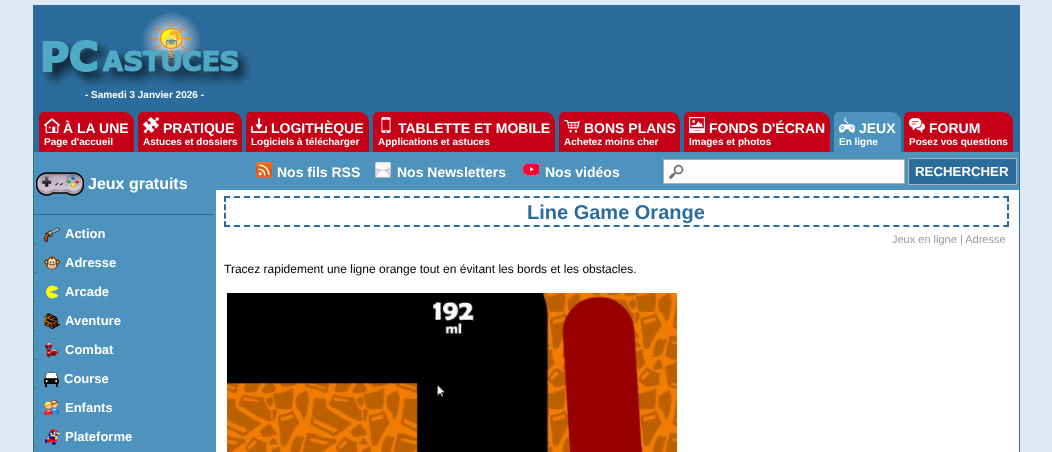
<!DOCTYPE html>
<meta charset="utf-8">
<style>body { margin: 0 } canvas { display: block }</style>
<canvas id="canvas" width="1052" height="452"></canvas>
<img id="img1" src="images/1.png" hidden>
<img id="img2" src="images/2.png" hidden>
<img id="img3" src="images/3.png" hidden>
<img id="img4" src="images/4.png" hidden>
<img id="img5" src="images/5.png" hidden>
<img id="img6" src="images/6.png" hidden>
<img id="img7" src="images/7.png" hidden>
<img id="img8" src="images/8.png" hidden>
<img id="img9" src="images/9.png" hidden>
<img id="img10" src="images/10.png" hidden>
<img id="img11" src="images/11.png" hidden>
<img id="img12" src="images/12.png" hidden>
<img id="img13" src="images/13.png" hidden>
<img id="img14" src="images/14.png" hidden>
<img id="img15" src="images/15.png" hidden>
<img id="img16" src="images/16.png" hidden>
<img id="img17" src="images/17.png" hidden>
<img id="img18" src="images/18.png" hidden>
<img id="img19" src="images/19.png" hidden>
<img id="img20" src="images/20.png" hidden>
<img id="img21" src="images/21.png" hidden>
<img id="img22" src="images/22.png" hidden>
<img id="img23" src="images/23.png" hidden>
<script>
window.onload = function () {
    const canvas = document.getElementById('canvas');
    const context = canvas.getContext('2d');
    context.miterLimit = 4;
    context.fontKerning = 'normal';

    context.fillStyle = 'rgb(223, 233, 244)';
    context.fillRect(0, 0, 1052, 452);
    context.fillStyle = 'rgb(44, 108, 157)';
    context.fillRect(33, 5, 987, 147);
    context.drawImage(document.getElementById('img1'), 41, 12, 211, 77);
    context.fillStyle = 'rgb(198, 0, 23)';
    context.beginPath();
    context.roundRect(39, 112, 95, 40, [5, 10, 0, 0]);
    context.fill();
    context.drawImage(document.getElementById('img2'), 44, 118, 16, 15);
    context.beginPath();
    context.roundRect(138, 112, 104, 40, [5, 10, 0, 0]);
    context.fill();
    context.drawImage(document.getElementById('img3'), 143, 117, 16, 16);
    context.beginPath();
    context.roundRect(246, 112, 123, 40, [5, 10, 0, 0]);
    context.fill();
    context.drawImage(document.getElementById('img4'), 251, 118, 16, 15);
    context.beginPath();
    context.roundRect(373, 112, 182, 40, [5, 10, 0, 0]);
    context.fill();
    context.drawImage(document.getElementById('img5'), 381, 117, 10, 16);
    context.beginPath();
    context.roundRect(559, 112, 121, 40, [5, 10, 0, 0]);
    context.fill();
    context.drawImage(document.getElementById('img6'), 564, 120, 16, 13);
    context.beginPath();
    context.roundRect(684, 112, 146, 40, [5, 10, 0, 0]);
    context.fill();
    context.drawImage(document.getElementById('img7'), 689, 117, 16, 16);
    context.fillStyle = 'rgb(78, 147, 189)';
    context.beginPath();
    context.roundRect(834, 112, 67, 40, [5, 10, 0, 0]);
    context.fill();
    context.drawImage(document.getElementById('img8'), 839, 117, 16, 16);
    context.fillStyle = 'rgb(198, 0, 23)';
    context.beginPath();
    context.roundRect(904, 112, 109, 40, [5, 10, 0, 0]);
    context.fill();
    context.drawImage(document.getElementById('img9'), 909, 118, 16, 15);
    context.fillStyle = 'rgb(44, 108, 157)';
    context.fillRect(1019, 152, 1, 300);
    context.fillRect(33, 152, 1, 300);
    context.fillStyle = 'rgb(78, 147, 189)';
    context.fillRect(34, 152, 182, 300);
    context.fillStyle = 'rgb(44, 108, 157)';
    context.fillRect(34, 214, 180, 1);
    context.drawImage(document.getElementById('img10'), 36, 172, 48, 24);
    context.beginPath();
    context.moveTo(34, 243.5);
    context.lineTo(214, 243.5);
    context.strokeStyle = 'rgb(44, 108, 157)';
    context.setLineDash([1, 1]);
    context.stroke();
    context.fillStyle = 'rgb(78, 147, 189)';
    context.fillRect(38, 243, 173, 1);
    context.drawImage(document.getElementById('img11'), 44, 227, 16, 15);
    context.beginPath();
    context.moveTo(34, 272.5);
    context.lineTo(214, 272.5);
    context.stroke();
    context.fillRect(38, 272, 173, 1);
    context.drawImage(document.getElementById('img12'), 44, 256, 16, 14);
    context.beginPath();
    context.moveTo(34, 301.5);
    context.lineTo(214, 301.5);
    context.stroke();
    context.fillRect(38, 301, 173, 1);
    context.drawImage(document.getElementById('img13'), 46, 285, 12, 14);
    context.beginPath();
    context.moveTo(34, 330.5);
    context.lineTo(214, 330.5);
    context.stroke();
    context.fillRect(38, 330, 173, 1);
    context.drawImage(document.getElementById('img14'), 44, 313, 16, 16);
    context.beginPath();
    context.moveTo(34, 359.5);
    context.lineTo(214, 359.5);
    context.stroke();
    context.fillRect(38, 359, 173, 1);
    context.drawImage(document.getElementById('img15'), 45, 343, 14, 15);
    context.beginPath();
    context.moveTo(34, 388.5);
    context.lineTo(214, 388.5);
    context.stroke();
    context.fillRect(38, 388, 173, 1);
    context.drawImage(document.getElementById('img16'), 44, 372, 15, 15);
    context.beginPath();
    context.moveTo(34, 417.5);
    context.lineTo(214, 417.5);
    context.stroke();
    context.fillRect(38, 417, 173, 1);
    context.drawImage(document.getElementById('img17'), 44, 400, 15, 15);
    context.beginPath();
    context.moveTo(34, 446.5);
    context.lineTo(214, 446.5);
    context.stroke();
    context.fillRect(38, 446, 173, 1);
    context.drawImage(document.getElementById('img18'), 45, 429, 15, 16);
    context.fillStyle = 'rgb(255, 255, 255)';
    context.fillRect(216, 190, 803, 262);
    context.fillStyle = 'rgb(78, 147, 189)';
    context.fillRect(216, 152, 803, 38);
    context.drawImage(document.getElementById('img19'), 256, 162, 16, 16);
    context.drawImage(document.getElementById('img20'), 375, 162, 16, 16);
    context.drawImage(document.getElementById('img21'), 523, 164, 16, 11);
    context.fillStyle = 'rgb(252, 252, 252)';
    context.fillRect(664, 160, 240, 23);
    context.drawImage(document.getElementById('img22'), 669, 164, 15, 16);
    context.strokeStyle = 'rgb(172, 177, 183)';
    context.setLineDash([]);
    context.strokeRect(663.5, 159.5, 241, 24);
    context.fillStyle = 'rgb(44, 108, 157)';
    context.beginPath();
    context.rect(908.5, 158.5, 108, 26);
    context.fill();
    context.stroke();
    context.beginPath();
    context.moveTo(224, 197);
    context.lineTo(1009, 197);
    context.strokeStyle = 'rgb(44, 108, 157)';
    context.lineWidth = 2;
    context.setLineDash([6, 3.99]);
    context.stroke();
    context.beginPath();
    context.moveTo(1008, 196);
    context.lineTo(1008, 227);
    context.setLineDash([6, 2.33]);
    context.stroke();
    context.beginPath();
    context.moveTo(224, 226);
    context.lineTo(1009, 226);
    context.setLineDash([6, 3.99]);
    context.stroke();
    context.beginPath();
    context.moveTo(225, 196);
    context.lineTo(225, 227);
    context.setLineDash([6, 2.33]);
    context.stroke();
    context.drawImage(document.getElementById('img23'), 227, 293, 450, 159);
    context.font = 'bold 10px Liberation Sans';
    context.fillStyle = 'rgb(255, 255, 255)';
    context.fillText('- Samedi 3 Janvier 2026 -', 85, 98);
    context.font = 'bold 14px Liberation Sans';
    context.fillText('À LA UNE', 63, 133);
    context.font = 'bold 10px Liberation Sans';
    context.fillText('Page d\'accueil', 44, 145);
    context.font = 'bold 14px Liberation Sans';
    context.fillText('PRATIQUE', 163, 133);
    context.font = 'bold 10px Liberation Sans';
    context.fillText('Astuces et dossiers', 143, 145);
    context.font = 'bold 14px Liberation Sans';
    context.fillText('LOGITHÈQUE', 271, 133);
    context.font = 'bold 10px Liberation Sans';
    context.fillText('Logiciels à télécharger', 251, 145);
    context.font = 'bold 14px Liberation Sans';
    context.fillText('TABLETTE ET MOBILE', 398, 133);
    context.font = 'bold 10px Liberation Sans';
    context.fillText('Applications et astuces', 378, 145);
    context.font = 'bold 14px Liberation Sans';
    context.fillText('BONS PLANS', 584, 133);
    context.font = 'bold 10px Liberation Sans';
    context.fillText('Achetez moins cher', 564, 145);
    context.font = 'bold 14px Liberation Sans';
    context.fillText('FONDS D\'ÉCRAN', 709, 133);
    context.font = 'bold 10px Liberation Sans';
    context.fillText('Images et photos', 689, 145);
    context.font = 'bold 14px Liberation Sans';
    context.fillText('JEUX', 859, 133);
    context.font = 'bold 10px Liberation Sans';
    context.fillText('En ligne', 839, 145);
    context.font = 'bold 14px Liberation Sans';
    context.fillText('FORUM', 929, 133);
    context.font = 'bold 10px Liberation Sans';
    context.fillText('Posez vos questions', 909, 145);
    context.font = 'bold 16px Liberation Sans';
    context.fillText('Jeux gratuits', 88, 189);
    context.font = 'bold 13px Liberation Sans';
    context.fillText('Action', 65, 238);
    context.fillText('Adresse', 65, 267);
    context.fillText('Arcade', 65, 296);
    context.fillText('Aventure', 65, 325);
    context.fillText('Combat', 65, 354);
    context.fillText('Course', 64, 383);
    context.fillText('Enfants', 65, 412);
    context.fillText('Plateforme', 65, 441);
    context.font = 'bold 14px Liberation Sans';
    context.fillText('Nos fils RSS', 277, 177);
    context.fillText('Nos Newsletters', 397, 177);
    context.fillText('Nos vidéos', 545, 177);
    context.font = 'bold 13.25px Liberation Sans';
    context.fillText('RECHERCHER', 915, 176);
    context.font = 'bold 20px Liberation Sans';
    context.fillStyle = 'rgb(44, 108, 157)';
    context.fillText('Line Game Orange', 527, 219);
    context.font = '11px Liberation Sans';
    context.fillStyle = 'rgb(154, 154, 154)';
    context.fillText('Jeux en ligne | Adresse', 892, 243);
    context.font = '12px Liberation Sans';
    context.fillStyle = 'rgb(0, 0, 0)';
    context.fillText('Tracez rapidement une ligne orange tout en évitant les bords et les obstacles.', 224, 273);
};
</script>
